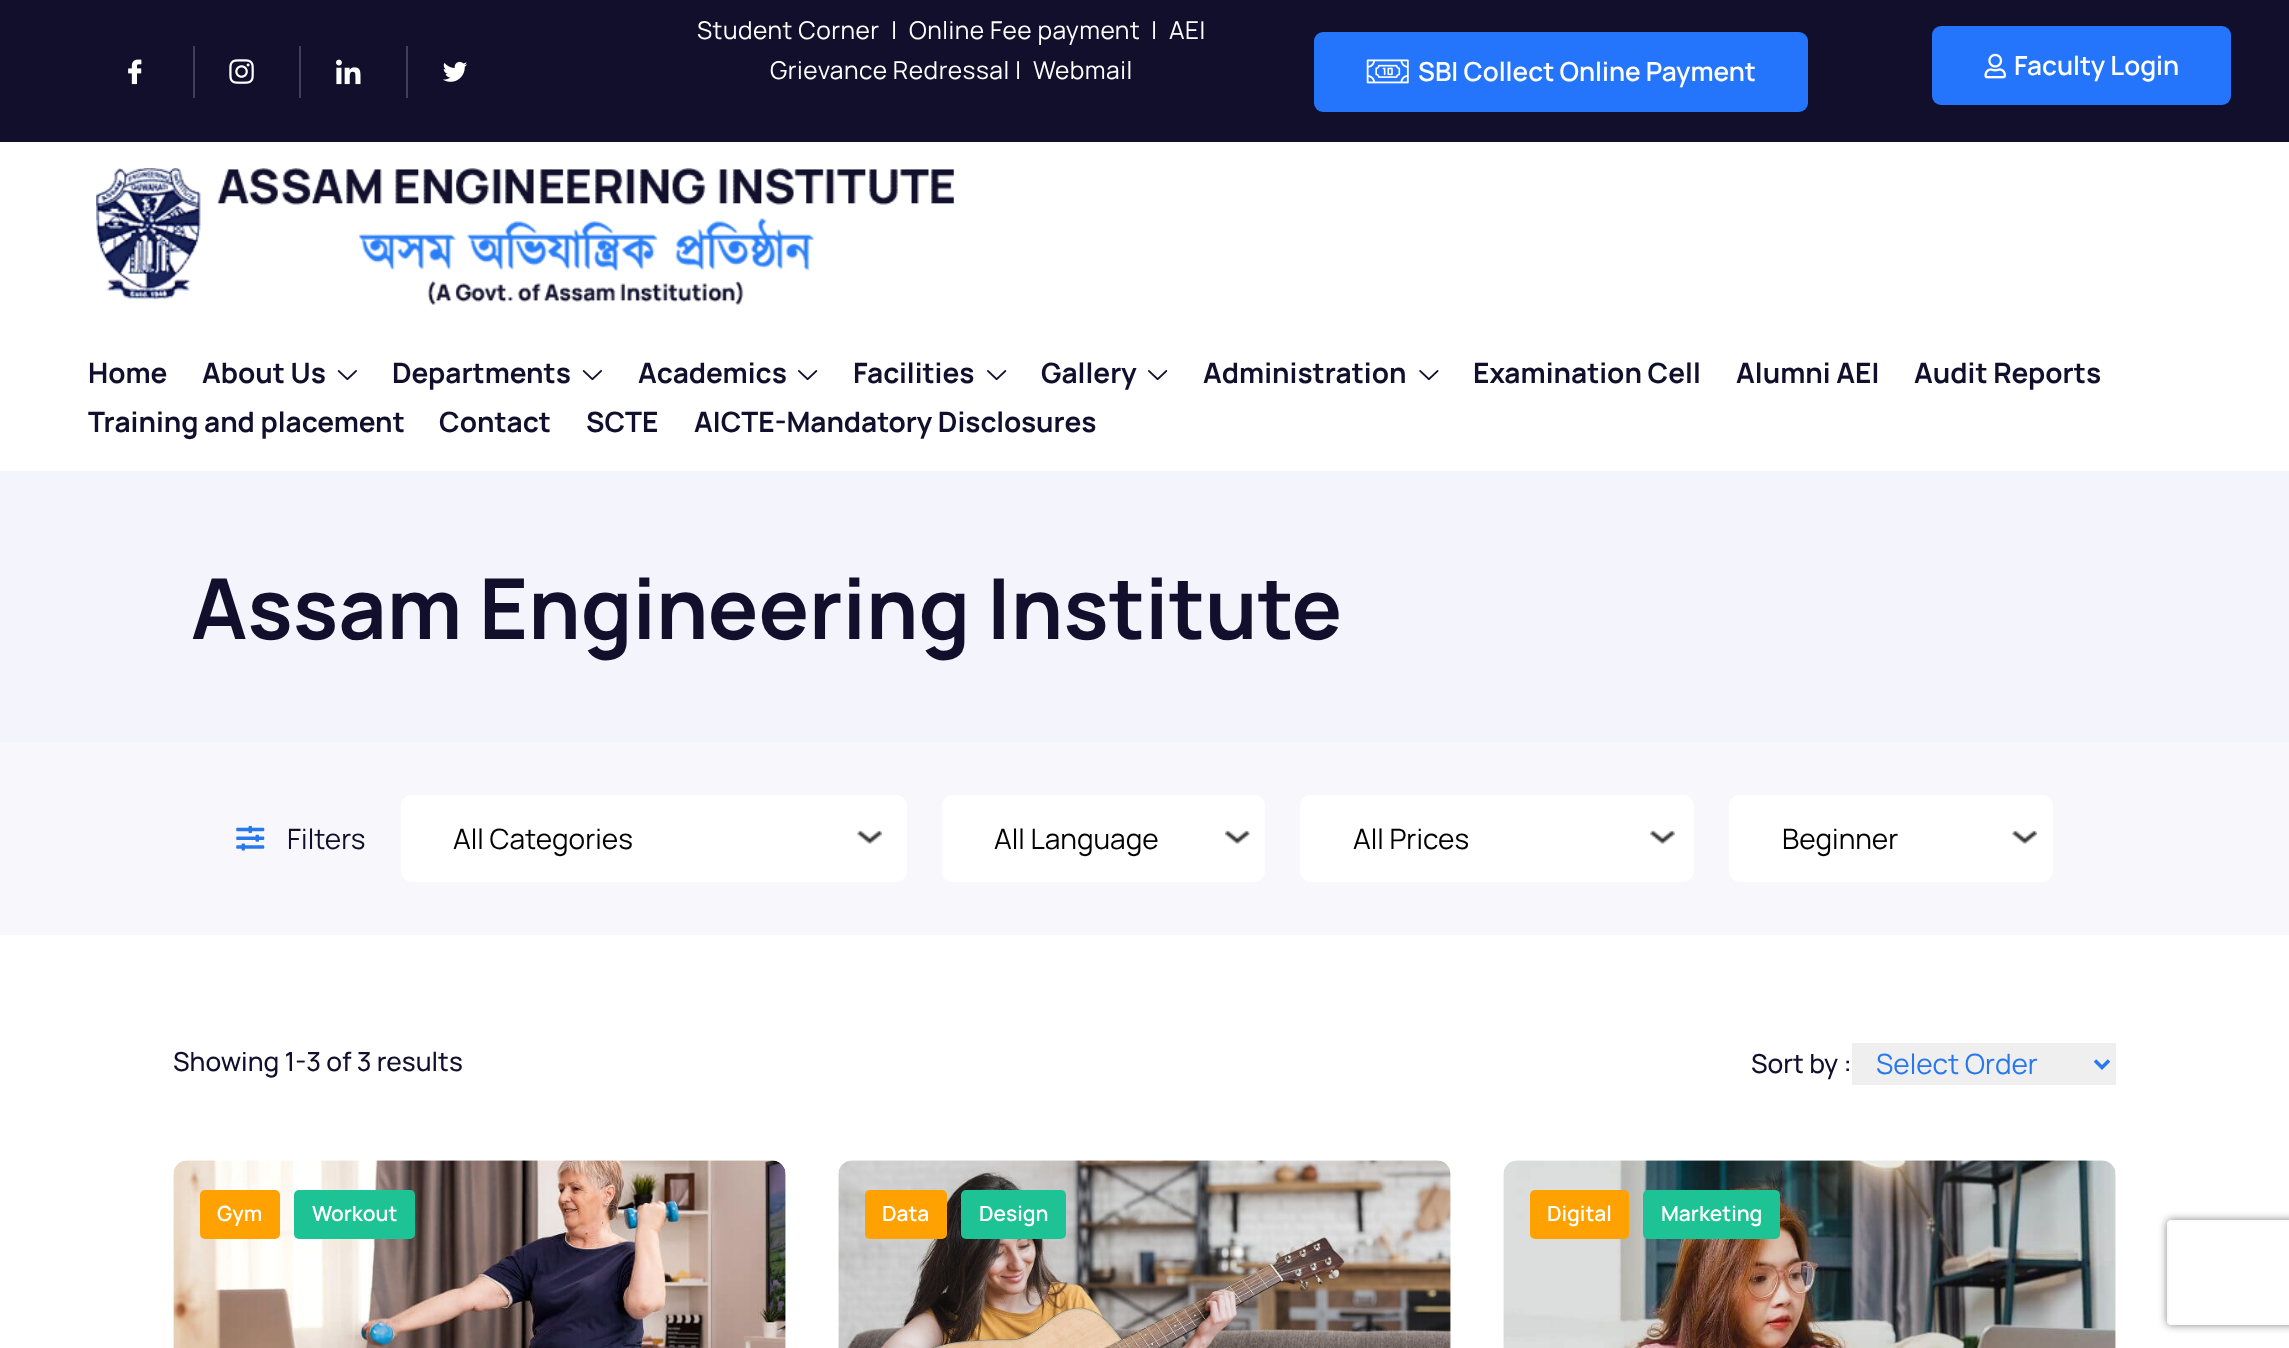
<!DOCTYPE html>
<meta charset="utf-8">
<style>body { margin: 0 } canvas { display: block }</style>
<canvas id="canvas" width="2289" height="1348"></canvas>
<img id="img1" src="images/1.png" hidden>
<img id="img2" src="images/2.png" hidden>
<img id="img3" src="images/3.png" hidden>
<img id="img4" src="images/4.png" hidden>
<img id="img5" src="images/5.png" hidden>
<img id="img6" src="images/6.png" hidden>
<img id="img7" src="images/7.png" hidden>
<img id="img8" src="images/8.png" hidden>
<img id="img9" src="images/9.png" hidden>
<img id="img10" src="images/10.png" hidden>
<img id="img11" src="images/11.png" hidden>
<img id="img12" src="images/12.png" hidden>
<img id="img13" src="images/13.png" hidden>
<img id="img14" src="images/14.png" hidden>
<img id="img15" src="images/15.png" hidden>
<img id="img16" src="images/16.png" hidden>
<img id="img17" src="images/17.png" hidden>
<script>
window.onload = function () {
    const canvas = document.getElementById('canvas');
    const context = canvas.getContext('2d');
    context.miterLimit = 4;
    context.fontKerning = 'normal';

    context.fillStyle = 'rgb(255, 255, 255)';
    context.fillRect(0, 0, 2289, 1348);
    context.fillStyle = 'rgb(18, 15, 45)';
    context.fillRect(0, 0, 2289, 142);
    context.fillStyle = 'rgb(65, 63, 87)';
    context.fillRect(193, 46, 2, 52);
    context.drawImage(document.getElementById('img1'), 128, 59, 14, 26);
    context.fillRect(299, 46, 2, 52);
    context.drawImage(document.getElementById('img2'), 229, 59, 25, 25);
    context.fillRect(406, 46, 2, 52);
    context.drawImage(document.getElementById('img3'), 336, 59, 25, 26);
    context.drawImage(document.getElementById('img4'), 443, 61, 25, 21);
    context.fillStyle = 'rgb(37, 117, 252)';
    context.beginPath();
    context.roundRect(1314, 32, 494, 80, 9);
    context.fill();
    context.drawImage(document.getElementById('img5'), 1366, 59, 43, 25);
    context.beginPath();
    context.roundRect(1932, 26, 299, 79, 9);
    context.fill();
    context.drawImage(document.getElementById('img6'), 1984, 53, 22, 26);
    context.drawImage(document.getElementById('img7'), 96, 168, 858, 137);
    context.drawImage(document.getElementById('img8'), 337, 370, 20, 11);
    context.drawImage(document.getElementById('img8'), 582, 370, 20, 11);
    context.drawImage(document.getElementById('img9'), 798, 370, 20, 11);
    context.drawImage(document.getElementById('img9'), 987, 370, 20, 11);
    context.drawImage(document.getElementById('img9'), 1148, 370, 20, 11);
    context.drawImage(document.getElementById('img10'), 1419, 370, 20, 11);
    context.fillStyle = 'rgb(244, 244, 252)';
    context.fillRect(0, 471, 2289, 271);
    context.fillStyle = 'rgb(248, 248, 252)';
    context.fillRect(0, 742, 2289, 193);
    context.drawImage(document.getElementById('img11'), 236, 826, 29, 25);
    context.fillStyle = 'rgb(255, 255, 255)';
    context.beginPath();
    context.roundRect(401, 795, 506, 87, 11);
    context.fill();
    context.drawImage(document.getElementById('img12'), 857, 830, 25, 14);
    context.beginPath();
    context.roundRect(942, 795, 323, 87, 11);
    context.fill();
    context.drawImage(document.getElementById('img13'), 1225, 830, 25, 14);
    context.beginPath();
    context.roundRect(1300, 795, 394, 87, 11);
    context.fill();
    context.drawImage(document.getElementById('img14'), 1650, 830, 25, 14);
    context.beginPath();
    context.roundRect(1729, 795, 324, 87, 11);
    context.fill();
    context.drawImage(document.getElementById('img12'), 2012, 830, 25, 14);
    context.fillStyle = 'rgb(239, 239, 239)';
    context.fillRect(1852, 1043, 264, 42);
    context.beginPath();
    context.moveTo(2095, 1060.5);
    context.lineTo(2102, 1067.5);
    context.lineTo(2109, 1060.5);
    context.strokeStyle = 'rgb(40, 120, 235)';
    context.lineWidth = 3.5;
    context.stroke();
    context.drawImage(document.getElementById('img15'), 173, 1160, 613, 188);
    context.fillStyle = 'rgb(255, 161, 0)';
    context.beginPath();
    context.roundRect(200, 1190, 80, 49, 5);
    context.fill();
    context.fillStyle = 'rgb(29, 194, 149)';
    context.beginPath();
    context.roundRect(294, 1190, 121, 49, 5);
    context.fill();
    context.drawImage(document.getElementById('img16'), 838, 1160, 613, 188);
    context.fillStyle = 'rgb(255, 161, 0)';
    context.beginPath();
    context.roundRect(865, 1190, 82, 49, 5);
    context.fill();
    context.fillStyle = 'rgb(29, 194, 149)';
    context.beginPath();
    context.roundRect(961, 1190, 105, 49, 5);
    context.fill();
    context.drawImage(document.getElementById('img17'), 1503, 1160, 613, 188);
    context.fillStyle = 'rgb(255, 161, 0)';
    context.beginPath();
    context.roundRect(1530, 1190, 99, 49, 5);
    context.fill();
    context.fillStyle = 'rgb(29, 194, 149)';
    context.beginPath();
    context.roundRect(1643, 1190, 137, 49, 5);
    context.fill();
    context.save();
    context.beginPath();
    context.moveTo(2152, 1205);
    context.lineTo(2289, 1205);
    context.lineTo(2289, 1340);
    context.lineTo(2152, 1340);
    context.closePath();
    context.moveTo(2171, 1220);
    context.lineTo(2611, 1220);
    context.bezierCurveTo(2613, 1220, 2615, 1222, 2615, 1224);
    context.lineTo(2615, 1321);
    context.bezierCurveTo(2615, 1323, 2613, 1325, 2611, 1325);
    context.lineTo(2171, 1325);
    context.bezierCurveTo(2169, 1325, 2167, 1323, 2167, 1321);
    context.lineTo(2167, 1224);
    context.bezierCurveTo(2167, 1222, 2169, 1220, 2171, 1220);
    context.closePath();
    context.clip('evenodd');
    context.fillStyle = 'rgb(128, 128, 128)';
    context.filter = 'blur(4.5px)';
    context.beginPath();
    context.roundRect(2167, 1220, 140, 105, 4);
    context.fill();
    context.filter = 'none';
    context.restore();
    context.fillStyle = 'rgb(251, 251, 251)';
    context.beginPath();
    context.moveTo(2171, 1220);
    context.bezierCurveTo(2169, 1220, 2167, 1222, 2167, 1224);
    context.lineTo(2167, 1321);
    context.bezierCurveTo(2167, 1323, 2169, 1325, 2171, 1325);
    context.lineTo(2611, 1325);
    context.bezierCurveTo(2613, 1325, 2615, 1323, 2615, 1321);
    context.lineTo(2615, 1224);
    context.bezierCurveTo(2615, 1222, 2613, 1220, 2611, 1220);
    context.closePath();
    context.moveTo(2169, 1222);
    context.lineTo(2169, 1323);
    context.lineTo(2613, 1323);
    context.lineTo(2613, 1222);
    context.closePath();
    context.fill('evenodd');
    context.letterSpacing = '0.5px';
    context.font = '24.5px Manrope';
    context.fillStyle = 'rgb(255, 255, 255)';
    context.fillText('Student Corner', 697, 39);
    context.fillText('|', 891, 39);
    context.fillText('Online Fee payment', 909, 39);
    context.fillText('|', 1151, 39);
    context.fillText('AEI', 1169, 39);
    context.fillText('Grievance Redressal |', 770, 79);
    context.fillText('Webmail', 1033, 79);
    context.letterSpacing = '0px';
    context.font = '600 26.25px Manrope';
    context.fillText('SBI Collect Online Payment', 1418, 81);
    context.fillText('Faculty Login', 2014, 75);
    context.font = 'bold 28px Manrope';
    context.fillStyle = 'rgb(18, 15, 45)';
    context.fillText('Home', 88, 383);
    context.fillText('About Us', 202, 383);
    context.fillText('Departments', 392, 383);
    context.fillText('Academics', 638, 383);
    context.fillText('Facilities', 853, 383);
    context.fillText('Gallery', 1041, 383);
    context.fillText('Administration', 1203, 383);
    context.fillText('Examination Cell', 1473, 383);
    context.fillText('Alumni AEI', 1736, 383);
    context.fillText('Audit Reports', 1914, 383);
    context.fillText('Training and placement', 88, 432);
    context.fillText('Contact', 439, 432);
    context.fillText('SCTE', 586, 432);
    context.fillText('AICTE-Mandatory Disclosures', 694, 432);
    context.font = 'bold 84px Manrope';
    context.fillText('Assam Engineering Institute', 191, 639);
    context.font = '28px Manrope';
    context.fillText('Filters', 287, 849);
    context.fillStyle = 'rgb(0, 0, 0)';
    context.fillText('All Categories', 453, 849);
    context.fillText('All Language', 994, 849);
    context.fillText('All Prices', 1353, 849);
    context.fillText('Beginner', 1782, 849);
    context.font = '500 26.25px Manrope';
    context.fillStyle = 'rgb(18, 15, 45)';
    context.fillText('Showing 1-3 of 3 results', 173, 1071);
    context.fillText('Sort by :', 1751, 1073);
    context.font = '28px Manrope';
    context.fillStyle = 'rgb(40, 120, 235)';
    context.fillText('Select Order', 1876, 1074);
    context.font = '600 21px Manrope';
    context.fillStyle = 'rgb(255, 255, 255)';
    context.fillText('Gym', 217, 1221);
    context.fillText('Workout', 312, 1221);
    context.fillText('Data', 882, 1221);
    context.fillText('Design', 979, 1221);
    context.fillText('Digital', 1547, 1221);
    context.fillText('Marketing', 1661, 1221);
};
</script>
